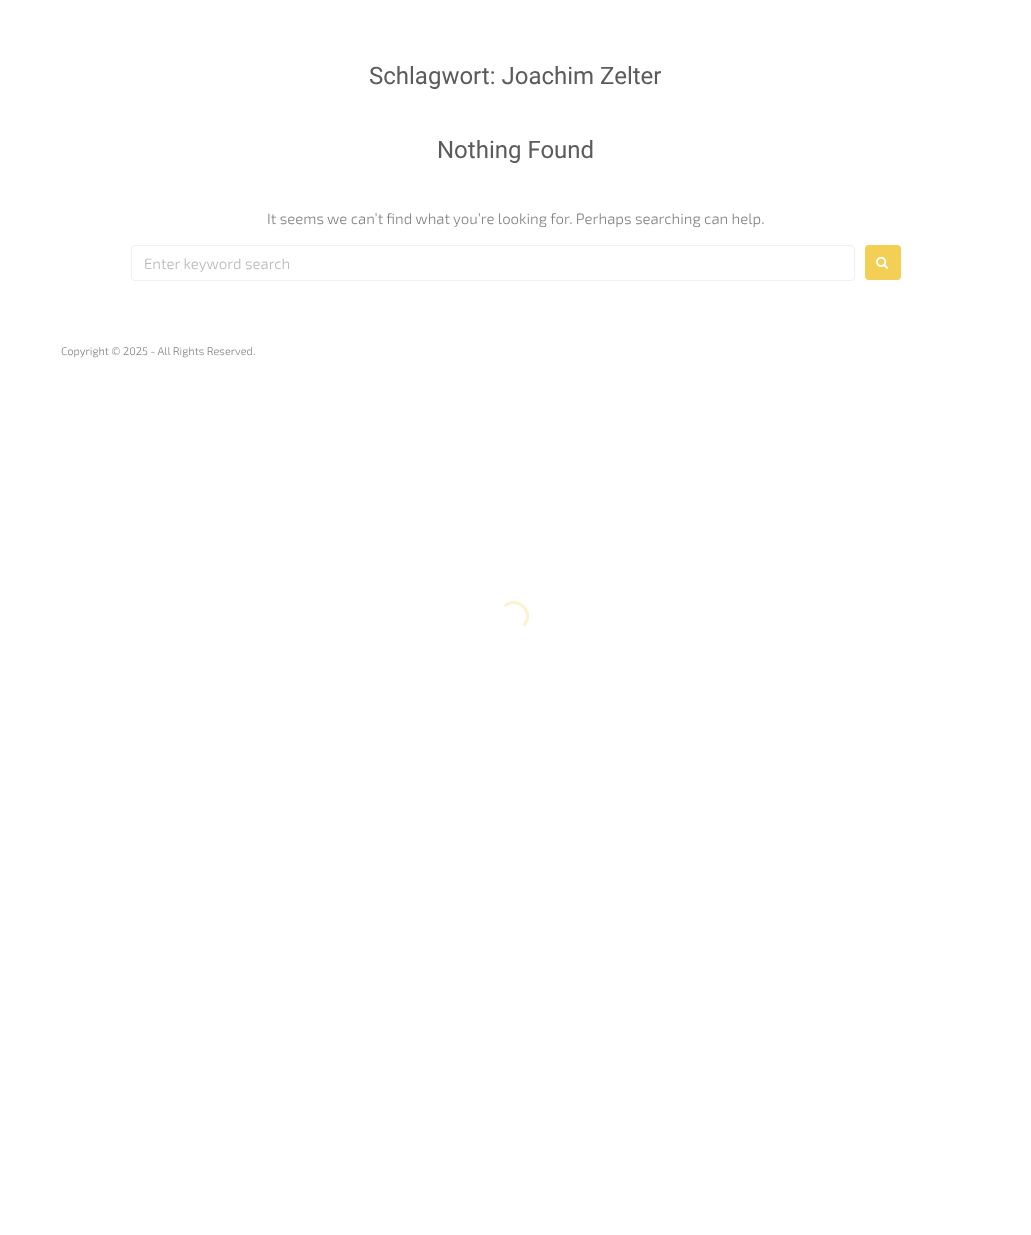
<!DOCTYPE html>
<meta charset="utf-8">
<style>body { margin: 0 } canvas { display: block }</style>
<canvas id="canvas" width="1031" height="1235"></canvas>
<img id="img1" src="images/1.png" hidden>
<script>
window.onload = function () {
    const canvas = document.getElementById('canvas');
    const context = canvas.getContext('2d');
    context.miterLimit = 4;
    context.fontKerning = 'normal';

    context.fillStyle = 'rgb(255, 255, 255)';
    context.fillRect(0, 0, 1031, 1235);
    context.beginPath();
    context.roundRect(131.5, 245.5, 723, 35, 3.5);
    context.strokeStyle = 'rgb(239, 240, 241)';
    context.stroke();
    context.fillStyle = 'rgb(243, 208, 85)';
    context.beginPath();
    context.roundRect(865, 245, 36, 35, 4);
    context.fill();
    context.drawImage(document.getElementById('img1'), 876, 256, 12, 13);
    context.beginPath();
    context.moveTo(504.5, 606.5);
    context.bezierCurveTo(517, 594, 536, 613, 523.5, 625.5);
    context.strokeStyle = 'rgb(252, 242, 208)';
    context.lineWidth = 3;
    context.stroke();
    context.font = '24px Roboto';
    context.fillStyle = 'rgb(91, 91, 91)';
    context.fillText('Schlagwort: Joachim Zelter', 369, 84);
    context.fillText('Nothing Found', 437, 158);
    context.font = '300 15px "Exo 2"';
    context.fillStyle = 'rgb(128, 128, 128)';
    context.fillText('It seems we can’t find what you’re looking for. Perhaps searching can help.', 267, 224);
    context.fillStyle = 'rgb(182, 182, 184)';
    context.fillText('Enter keyword search', 144, 269);
    context.font = '300 11px "Exo 2"';
    context.fillStyle = 'rgb(128, 128, 128)';
    context.fillText('Copyright © 2025 - All Rights Reserved.', 61, 355);
};
</script>
